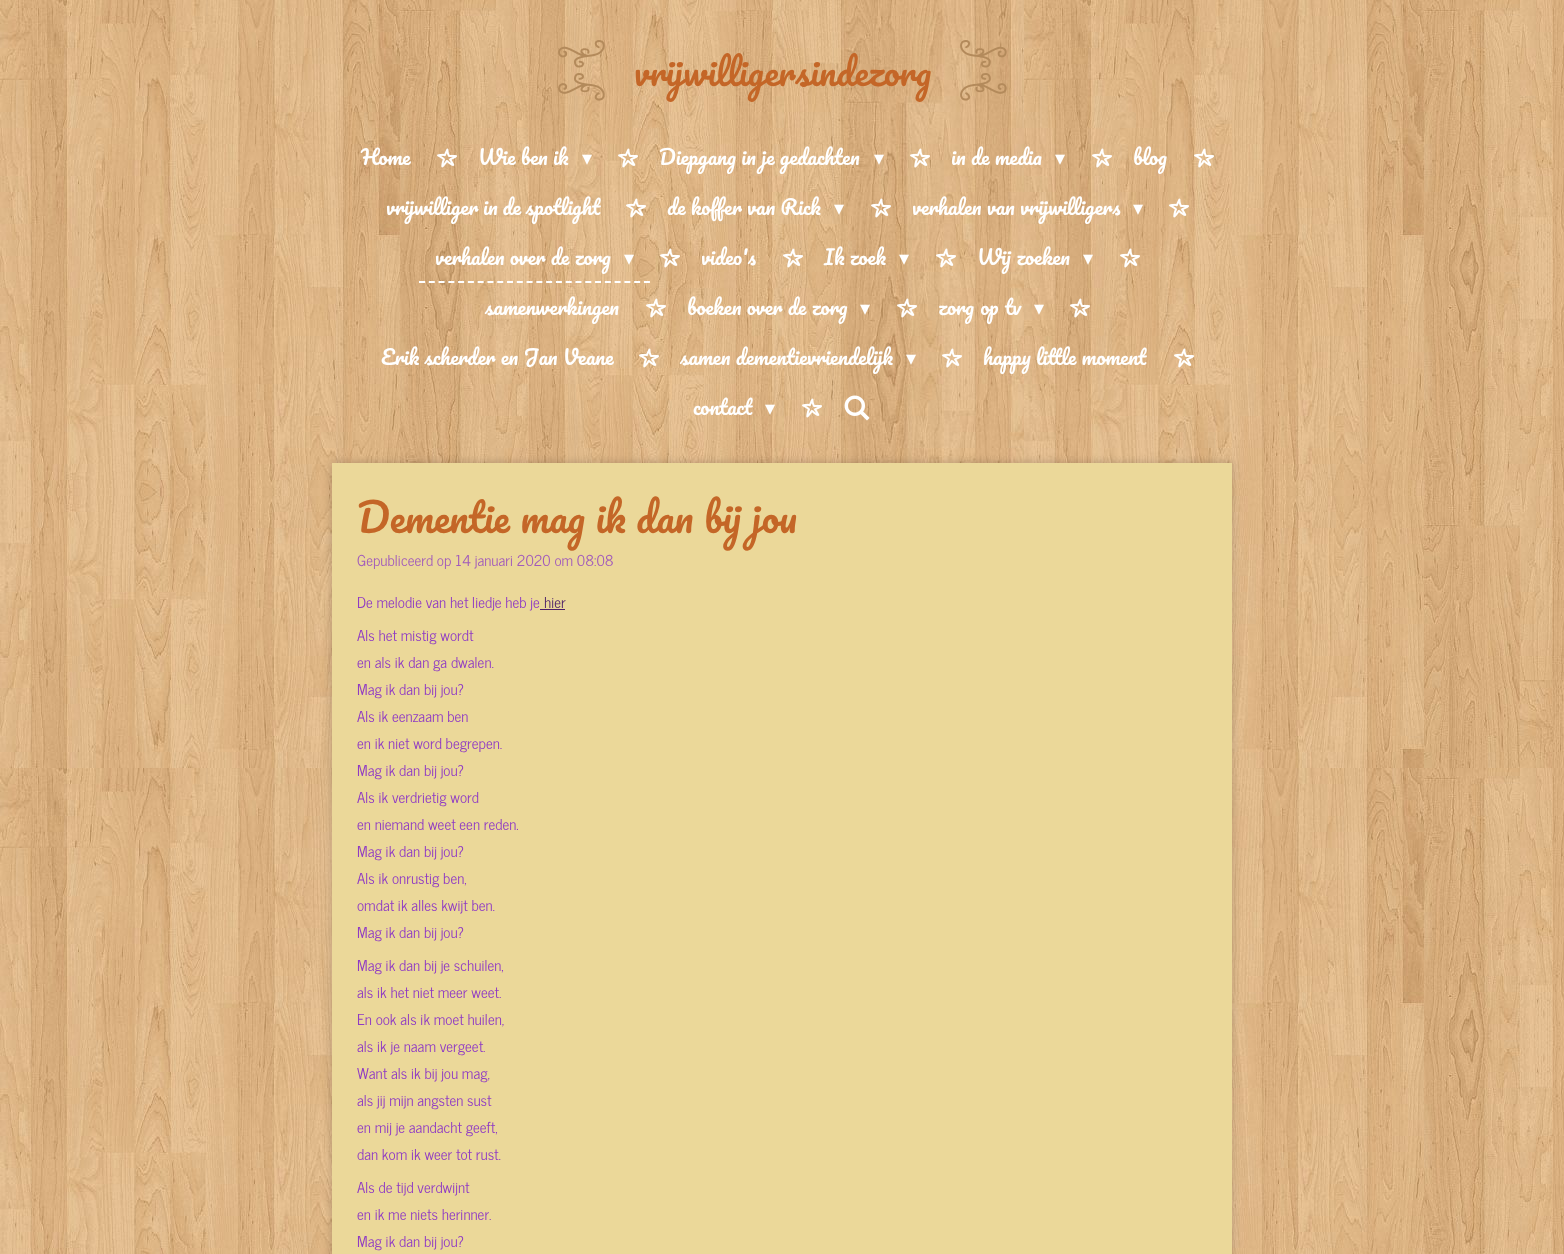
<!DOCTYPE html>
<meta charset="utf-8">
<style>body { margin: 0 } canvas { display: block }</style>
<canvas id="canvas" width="1564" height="1254"></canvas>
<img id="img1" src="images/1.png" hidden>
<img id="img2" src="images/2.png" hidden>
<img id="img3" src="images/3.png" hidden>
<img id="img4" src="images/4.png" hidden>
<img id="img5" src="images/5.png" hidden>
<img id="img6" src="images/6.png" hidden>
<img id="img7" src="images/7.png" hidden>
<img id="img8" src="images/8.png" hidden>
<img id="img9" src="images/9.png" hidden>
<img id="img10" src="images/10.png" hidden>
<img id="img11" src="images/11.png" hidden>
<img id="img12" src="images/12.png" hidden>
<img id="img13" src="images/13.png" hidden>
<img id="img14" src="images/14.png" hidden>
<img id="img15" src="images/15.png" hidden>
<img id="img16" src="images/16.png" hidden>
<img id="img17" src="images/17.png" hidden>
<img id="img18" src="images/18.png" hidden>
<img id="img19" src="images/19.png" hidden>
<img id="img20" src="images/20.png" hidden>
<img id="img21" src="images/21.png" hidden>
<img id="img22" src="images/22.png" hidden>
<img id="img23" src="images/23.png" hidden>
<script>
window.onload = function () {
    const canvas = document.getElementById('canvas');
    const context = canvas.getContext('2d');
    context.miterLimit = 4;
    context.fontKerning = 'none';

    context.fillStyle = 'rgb(255, 255, 255)';
    context.fillRect(0, 0, 1564, 1254);
    context.drawImage(document.getElementById('img1'), 0, 0, 1564, 1254);
    context.drawImage(document.getElementById('img2'), 558, 40, 47, 61);
    context.drawImage(document.getElementById('img3'), 960, 40, 47, 61);
    context.drawImage(document.getElementById('img4'), 437, 148, 20, 20);
    context.drawImage(document.getElementById('img5'), 618, 148, 20, 20);
    context.drawImage(document.getElementById('img6'), 910, 148, 20, 20);
    context.drawImage(document.getElementById('img7'), 1092, 148, 20, 20);
    context.drawImage(document.getElementById('img8'), 1194, 148, 20, 20);
    context.drawImage(document.getElementById('img9'), 626, 198, 20, 20);
    context.drawImage(document.getElementById('img10'), 871, 198, 20, 20);
    context.drawImage(document.getElementById('img11'), 1169, 198, 20, 20);
    context.beginPath();
    context.moveTo(419, 282);
    context.lineTo(650, 282);
    context.strokeStyle = 'rgb(255, 255, 255)';
    context.lineWidth = 2;
    context.setLineDash([6, 3.78]);
    context.stroke();
    context.drawImage(document.getElementById('img12'), 660, 248, 20, 20);
    context.drawImage(document.getElementById('img13'), 783, 248, 20, 20);
    context.drawImage(document.getElementById('img14'), 936, 248, 20, 20);
    context.drawImage(document.getElementById('img15'), 1120, 248, 20, 20);
    context.drawImage(document.getElementById('img16'), 646, 298, 20, 20);
    context.drawImage(document.getElementById('img17'), 897, 298, 20, 20);
    context.drawImage(document.getElementById('img18'), 1070, 298, 20, 20);
    context.drawImage(document.getElementById('img19'), 639, 348, 20, 20);
    context.drawImage(document.getElementById('img20'), 942, 348, 20, 20);
    context.drawImage(document.getElementById('img21'), 1174, 348, 20, 20);
    context.drawImage(document.getElementById('img22'), 802, 398, 20, 20);
    context.drawImage(document.getElementById('img23'), 844, 395, 26, 26);
    context.fillStyle = 'rgba(0, 0, 0, 0.2)';
    context.filter = 'blur(5px)';
    context.beginPath();
    context.rect(332, 463, 900, 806);
    context.fill();
    context.filter = 'none';
    context.fillStyle = 'rgb(235, 216, 153)';
    context.fillRect(332, 463, 900, 791);
    context.fillStyle = 'rgb(76, 31, 104)';
    context.fillRect(540, 609, 25, 1);
    context.font = '35px Pacifico';
    context.fillStyle = 'rgb(196, 102, 39)';
    context.fillText('vrijwilligersindezorg', 634, 86);
    context.font = '20px Pacifico';
    context.fillStyle = 'rgb(255, 255, 255)';
    context.fillText('Home', 361, 165);
    context.fillText('Wie ben ik', 478, 165);
    context.font = '20px DejaVu Sans';
    context.fillText('▾', 582, 165);
    context.font = '20px Pacifico';
    context.fillText('Diepgang in je gedachten', 659, 165);
    context.font = '20px DejaVu Sans';
    context.fillText('▾', 874, 165);
    context.font = '20px Pacifico';
    context.fillText('in de media', 951, 165);
    context.font = '20px DejaVu Sans';
    context.fillText('▾', 1055, 165);
    context.font = '20px Pacifico';
    context.fillText('blog', 1133, 165);
    context.wordSpacing = '-0.5px';
    context.fillText('vrijwilliger in de spotlight', 386, 215);
    context.wordSpacing = '0px';
    context.fillText('de koffer van Rick', 667, 215);
    context.font = '20px DejaVu Sans';
    context.fillText('▾', 834, 215);
    context.font = '20px Pacifico';
    context.fillText('verhalen van vrijwilligers', 912, 215);
    context.font = '20px DejaVu Sans';
    context.fillText('▾', 1133, 215);
    context.font = '20px Pacifico';
    context.fillText('verhalen over de zorg', 435, 265);
    context.font = '20px DejaVu Sans';
    context.fillText('▾', 624, 265);
    context.font = '20px Pacifico';
    context.fillText('video\'s', 701, 265);
    context.fillText('Ik zoek', 824, 265);
    context.font = '20px DejaVu Sans';
    context.fillText('▾', 899, 265);
    context.font = '20px Pacifico';
    context.fillText('Wij zoeken', 977, 265);
    context.font = '20px DejaVu Sans';
    context.fillText('▾', 1083, 265);
    context.font = '20px Pacifico';
    context.fillText('samenwerkingen', 485, 315);
    context.fillText('boeken over de zorg', 687, 315);
    context.font = '20px DejaVu Sans';
    context.fillText('▾', 860, 315);
    context.wordSpacing = '1px';
    context.font = '20px Pacifico';
    context.fillText('zorg op tv', 938, 315);
    context.wordSpacing = '0px';
    context.font = '20px DejaVu Sans';
    context.fillText('▾', 1034, 315);
    context.font = '20px Pacifico';
    context.fillText('Erik scherder en Jan Veane', 381, 365);
    context.fillText('samen dementievriendelijk', 680, 365);
    context.font = '20px DejaVu Sans';
    context.fillText('▾', 906, 365);
    context.font = '20px Pacifico';
    context.fillText('happy little moment', 983, 365);
    context.fillText('contact', 693, 415);
    context.font = '20px DejaVu Sans';
    context.fillText('▾', 765, 415);
    context.wordSpacing = '0.25px';
    context.font = '39px Pacifico';
    context.fillStyle = 'rgb(196, 102, 39)';
    context.fillText('Dementie mag ik dan bij jou', 357, 533);
    context.wordSpacing = '0px';
    context.font = '15px News Cycle';
    context.fillStyle = 'rgb(161, 90, 187)';
    context.fillText('Gepubliceerd op 14 januari 2020 om 08:08', 357, 566);
    context.fillStyle = 'rgb(143, 58, 196)';
    context.fillText('De melodie van het liedje heb je', 357, 608);
    context.fillStyle = 'rgb(76, 31, 104)';
    context.fillText('hier', 544, 608);
    context.fillStyle = 'rgb(143, 58, 196)';
    context.fillText('Als het mistig wordt', 357, 641);
    context.fillText('en als ik dan ga dwalen.', 357, 668);
    context.fillText('Mag ik dan bij jou?', 357, 695);
    context.fillText('Als ik eenzaam ben', 357, 722);
    context.fillText('en ik niet word begrepen.', 357, 749);
    context.fillText('Mag ik dan bij jou?', 357, 776);
    context.fillText('Als ik verdrietig word', 357, 803);
    context.fillText('en niemand weet een reden.', 357, 830);
    context.fillText('Mag ik dan bij jou?', 357, 857);
    context.fillText('Als ik onrustig ben,', 357, 884);
    context.fillText('omdat ik alles kwijt ben.', 357, 911);
    context.fillText('Mag ik dan bij jou?', 357, 938);
    context.fillText('Mag ik dan bij je schuilen,', 357, 971);
    context.fillText('als ik het niet meer weet.', 357, 998);
    context.fillText('En ook als ik moet huilen,', 357, 1025);
    context.fillText('als ik je naam vergeet.', 357, 1052);
    context.fillText('Want als ik bij jou mag,', 357, 1079);
    context.fillText('als jij mijn angsten sust', 357, 1106);
    context.fillText('en mij je aandacht geeft,', 357, 1133);
    context.fillText('dan kom ik weer tot rust.', 357, 1160);
    context.fillText('Als de tijd verdwijnt', 357, 1193);
    context.fillText('en ik me niets herinner.', 357, 1220);
    context.fillText('Mag ik dan bij jou?', 357, 1247);
};
</script>
